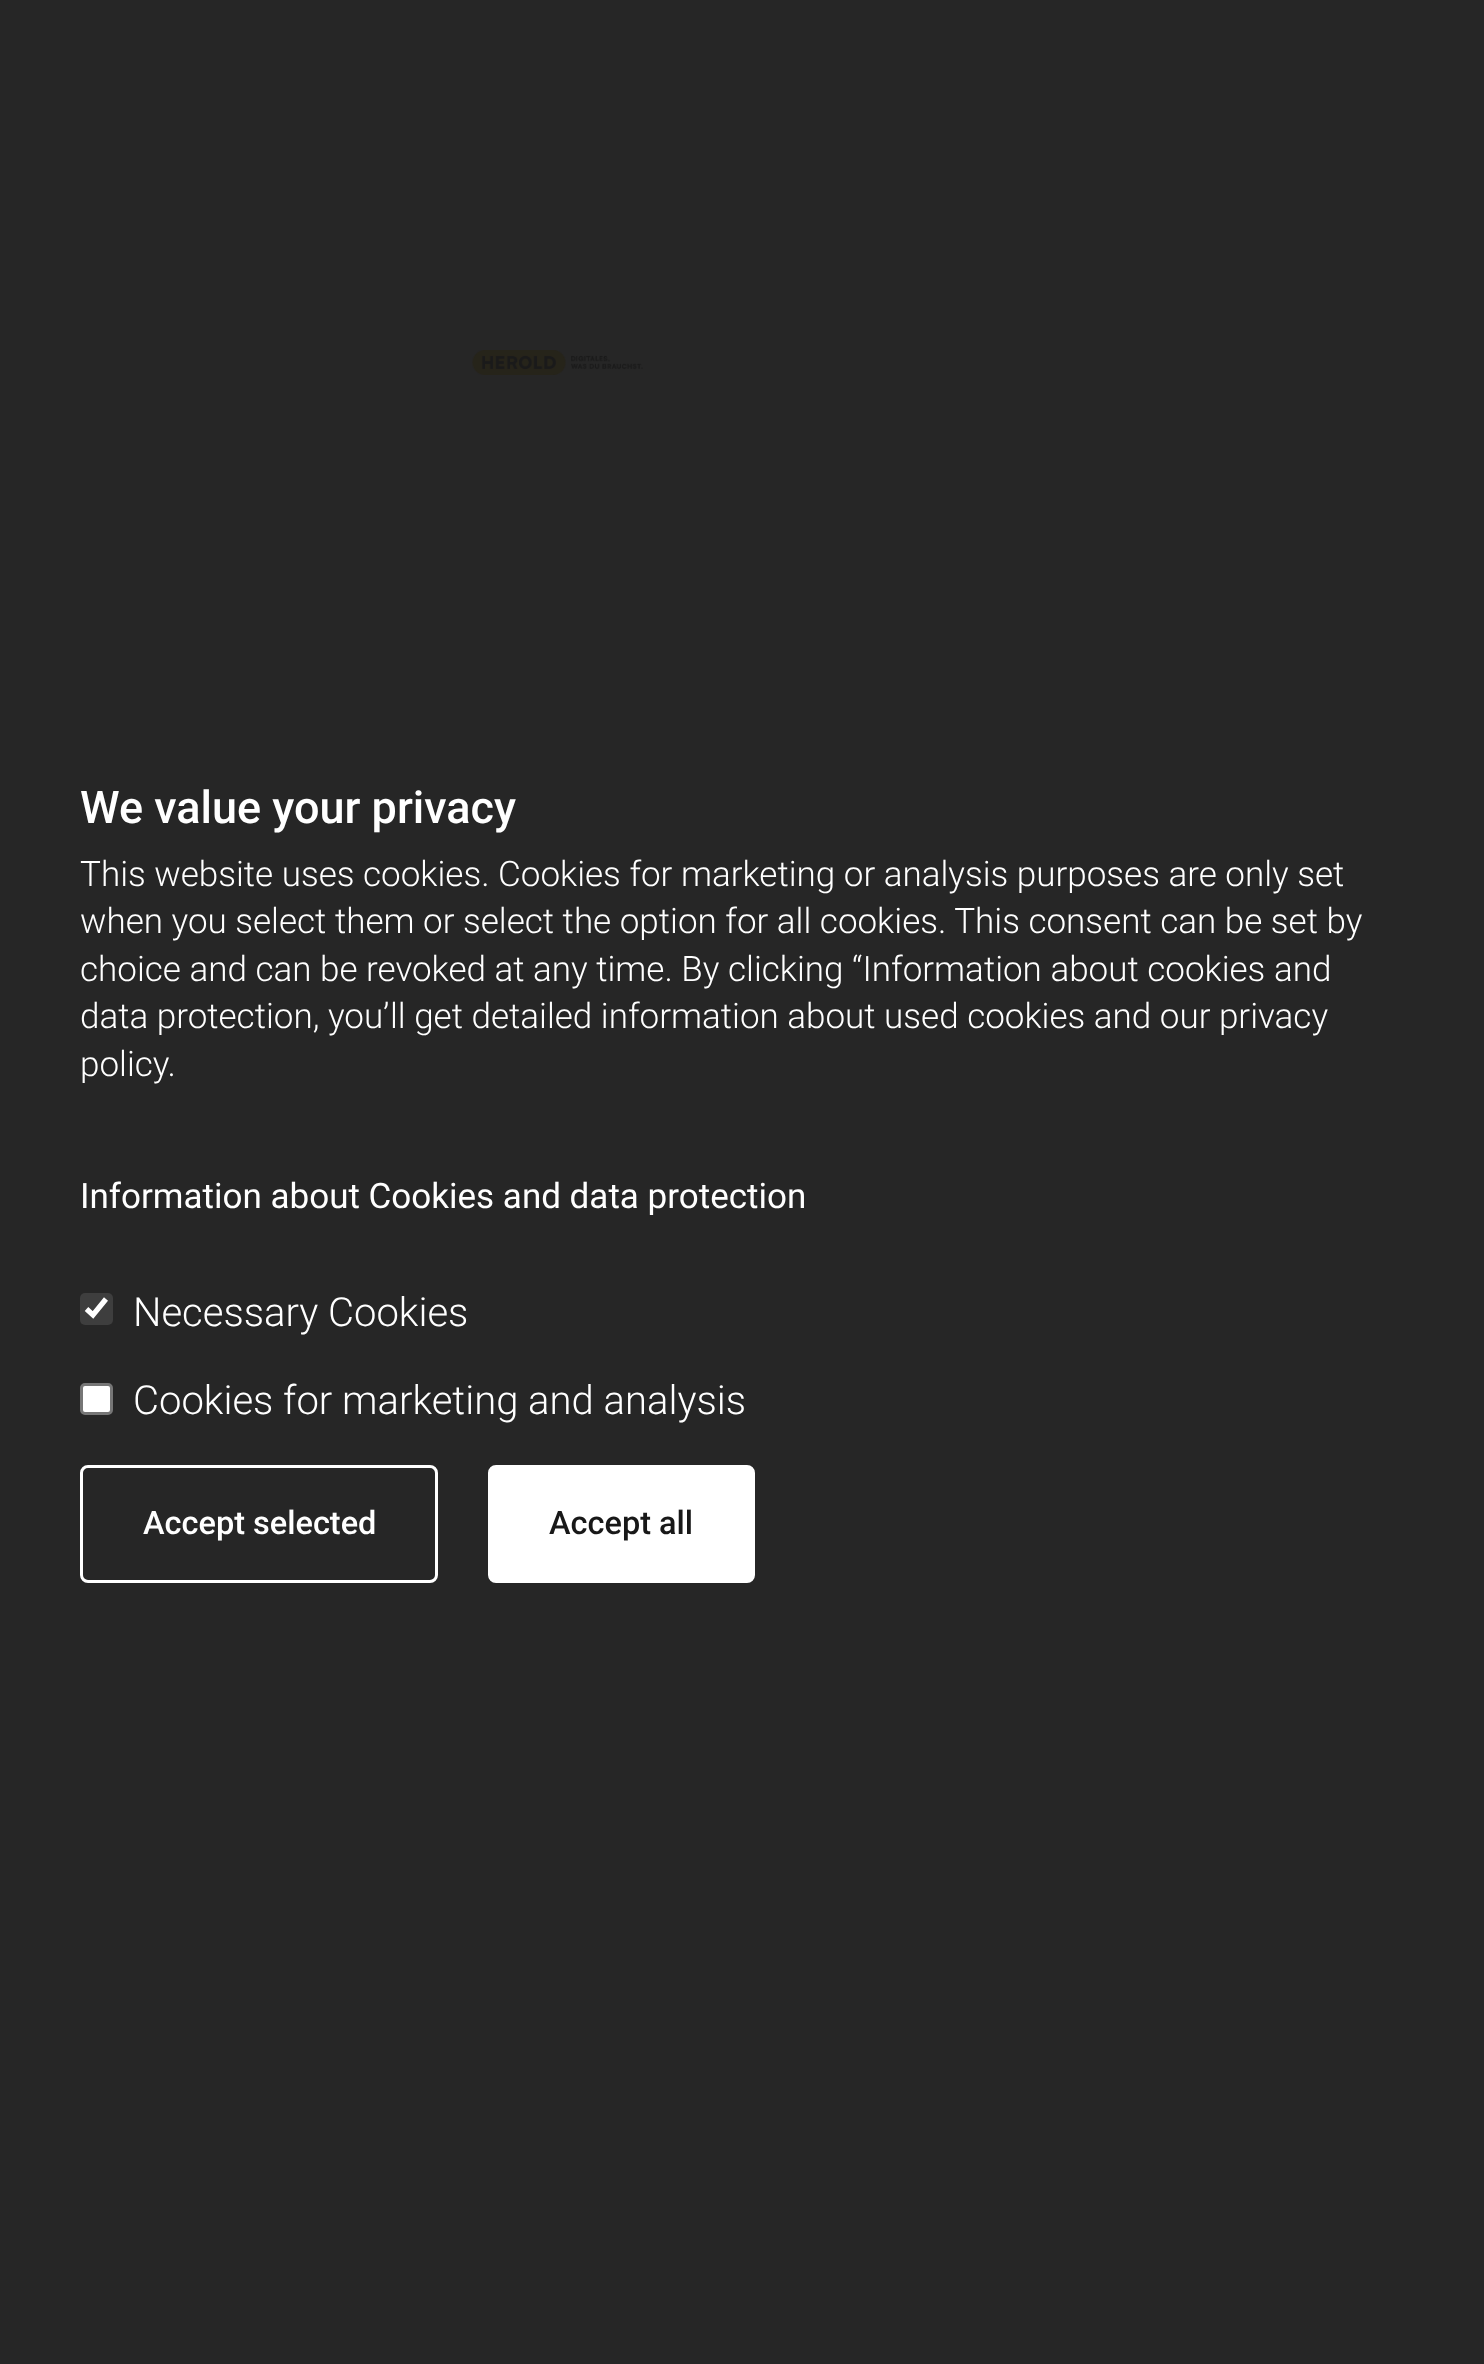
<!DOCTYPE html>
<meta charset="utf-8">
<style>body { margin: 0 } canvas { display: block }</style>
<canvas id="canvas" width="1484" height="2364"></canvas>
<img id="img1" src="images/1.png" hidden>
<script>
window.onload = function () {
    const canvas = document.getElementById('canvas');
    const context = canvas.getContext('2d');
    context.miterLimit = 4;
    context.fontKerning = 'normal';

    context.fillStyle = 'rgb(38, 38, 38)';
    context.fillRect(0, 0, 1484, 2364);
    context.drawImage(document.getElementById('img1'), 472, 350, 171, 25);
    context.fillStyle = 'rgb(62, 62, 62)';
    context.beginPath();
    context.roundRect(80, 1293, 33, 32, 5);
    context.fill();
    context.beginPath();
    context.moveTo(86.5, 1309);
    context.lineTo(93, 1315);
    context.lineTo(106, 1299);
    context.strokeStyle = 'rgb(255, 255, 255)';
    context.lineWidth = 5.2;
    context.stroke();
    context.fillStyle = 'rgb(255, 255, 255)';
    context.beginPath();
    context.roundRect(81.5, 1384.5, 30, 29, 3.5);
    context.fill();
    context.strokeStyle = 'rgb(118, 118, 118)';
    context.lineWidth = 3;
    context.stroke();
    context.beginPath();
    context.roundRect(81.5, 1466.5, 355, 115, 6.5);
    context.strokeStyle = 'rgb(255, 255, 255)';
    context.stroke();
    context.beginPath();
    context.roundRect(489.5, 1466.5, 264, 115, 6.5);
    context.fill();
    context.stroke();
    context.font = '500 45px Roboto';
    context.fillText('We value your privacy', 80, 823);
    context.font = '300 35px Roboto';
    context.fillText('This website uses cookies. Cookies for marketing or analysis purposes are only set', 80, 886);
    context.fillText('when you select them or select the option for all cookies. This consent can be set by', 80, 933);
    context.fillText('choice and can be revoked at any time. By clicking “Information about cookies and', 80, 981);
    context.fillText('data protection, you’ll get detailed information about used cookies and our privacy', 80, 1028);
    context.fillText('policy.', 80, 1076);
    context.font = '35px Roboto';
    context.fillText('Information about Cookies and data protection', 80, 1208);
    context.font = '300 40px Roboto';
    context.fillText('Necessary Cookies', 133, 1326);
    context.fillText('Cookies for marketing and analysis', 133, 1414);
    context.font = '500 32.5px Roboto';
    context.fillText('Accept selected', 143, 1534);
    context.fillStyle = 'rgb(24, 24, 24)';
    context.fillText('Accept all', 549, 1534);
};
</script>
